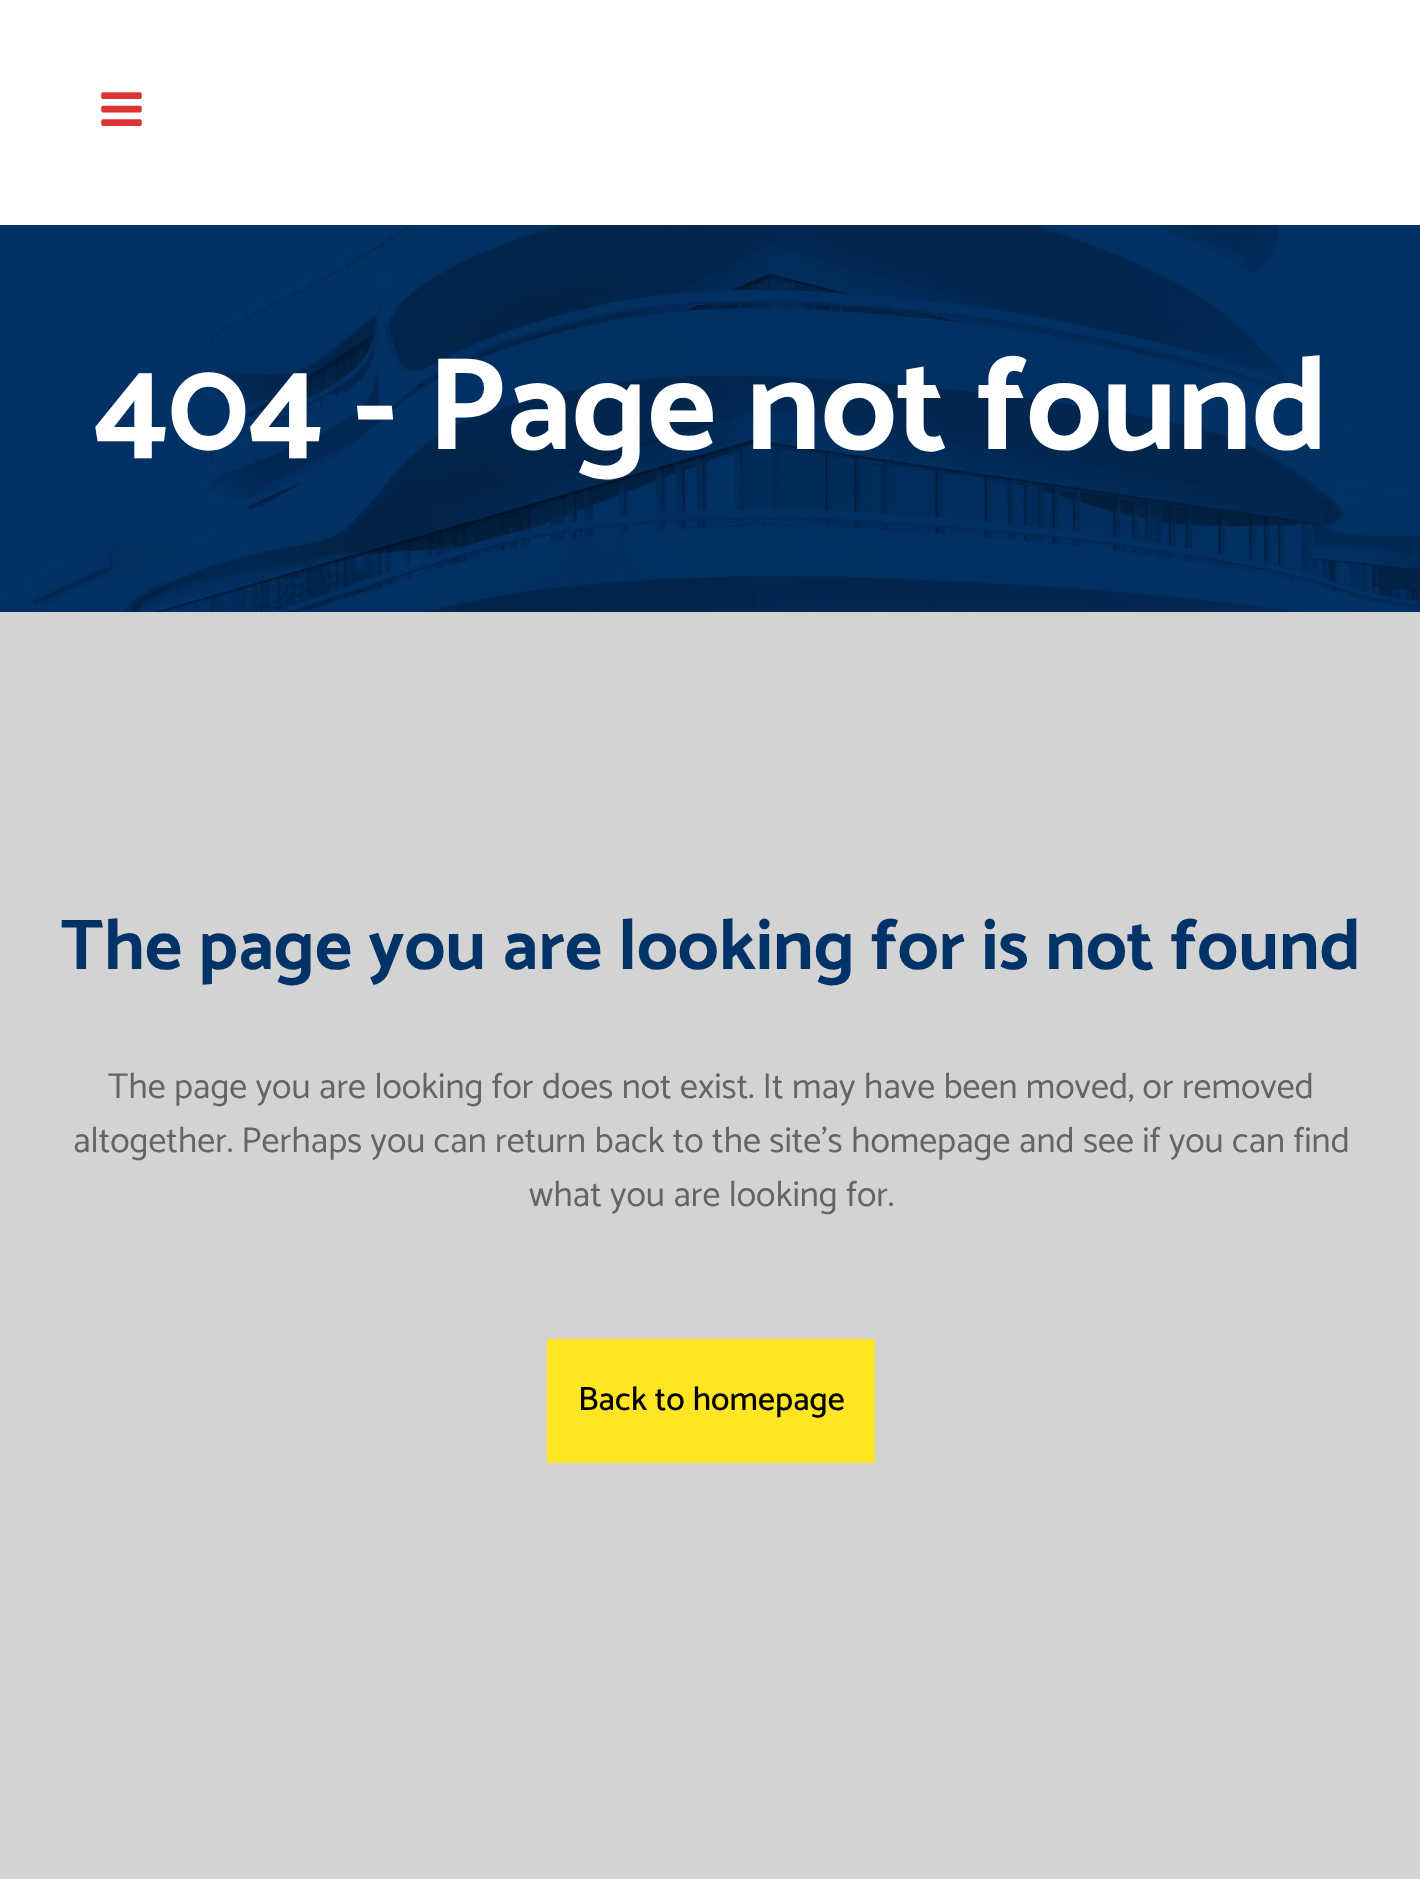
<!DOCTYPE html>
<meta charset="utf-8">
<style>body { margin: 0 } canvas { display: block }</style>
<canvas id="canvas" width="1420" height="1879"></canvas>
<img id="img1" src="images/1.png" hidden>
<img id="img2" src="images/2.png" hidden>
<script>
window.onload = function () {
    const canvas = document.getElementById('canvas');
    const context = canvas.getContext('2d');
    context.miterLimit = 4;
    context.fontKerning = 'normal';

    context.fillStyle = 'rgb(211, 211, 211)';
    context.fillRect(0, 0, 1420, 1879);
    context.fillStyle = 'rgb(255, 255, 255)';
    context.fillRect(0, 0, 1420, 225);
    context.drawImage(document.getElementById('img1'), 101, 92, 41, 34);
    context.drawImage(document.getElementById('img2'), 0, 225, 1420, 387);
    context.fillStyle = 'rgb(255, 229, 34)';
    context.fillRect(547, 1339, 328, 124);
    context.font = 'bold 132.75px Catamaran';
    context.fillStyle = 'rgb(255, 255, 255)';
    context.fillText('404 - Page not found', 94, 449);
    context.font = 'bold 72px Catamaran';
    context.fillStyle = 'rgb(2, 51, 104)';
    context.fillText('The page you are looking for is not found', 61, 969);
    context.font = '36px Catamaran';
    context.fillStyle = 'rgb(100, 100, 100)';
    context.fillText('The page you are looking for does not exist. It may have been moved, or removed', 108, 1098);
    context.fillText('altogether. Perhaps you can return back to the site’s homepage and see if you can find', 73, 1152);
    context.fillText('what you are looking for.', 529, 1206);
    context.font = '500 33.75px Catamaran';
    context.fillStyle = 'rgb(0, 0, 0)';
    context.fillText('Back to homepage', 578, 1410);
};
</script>
